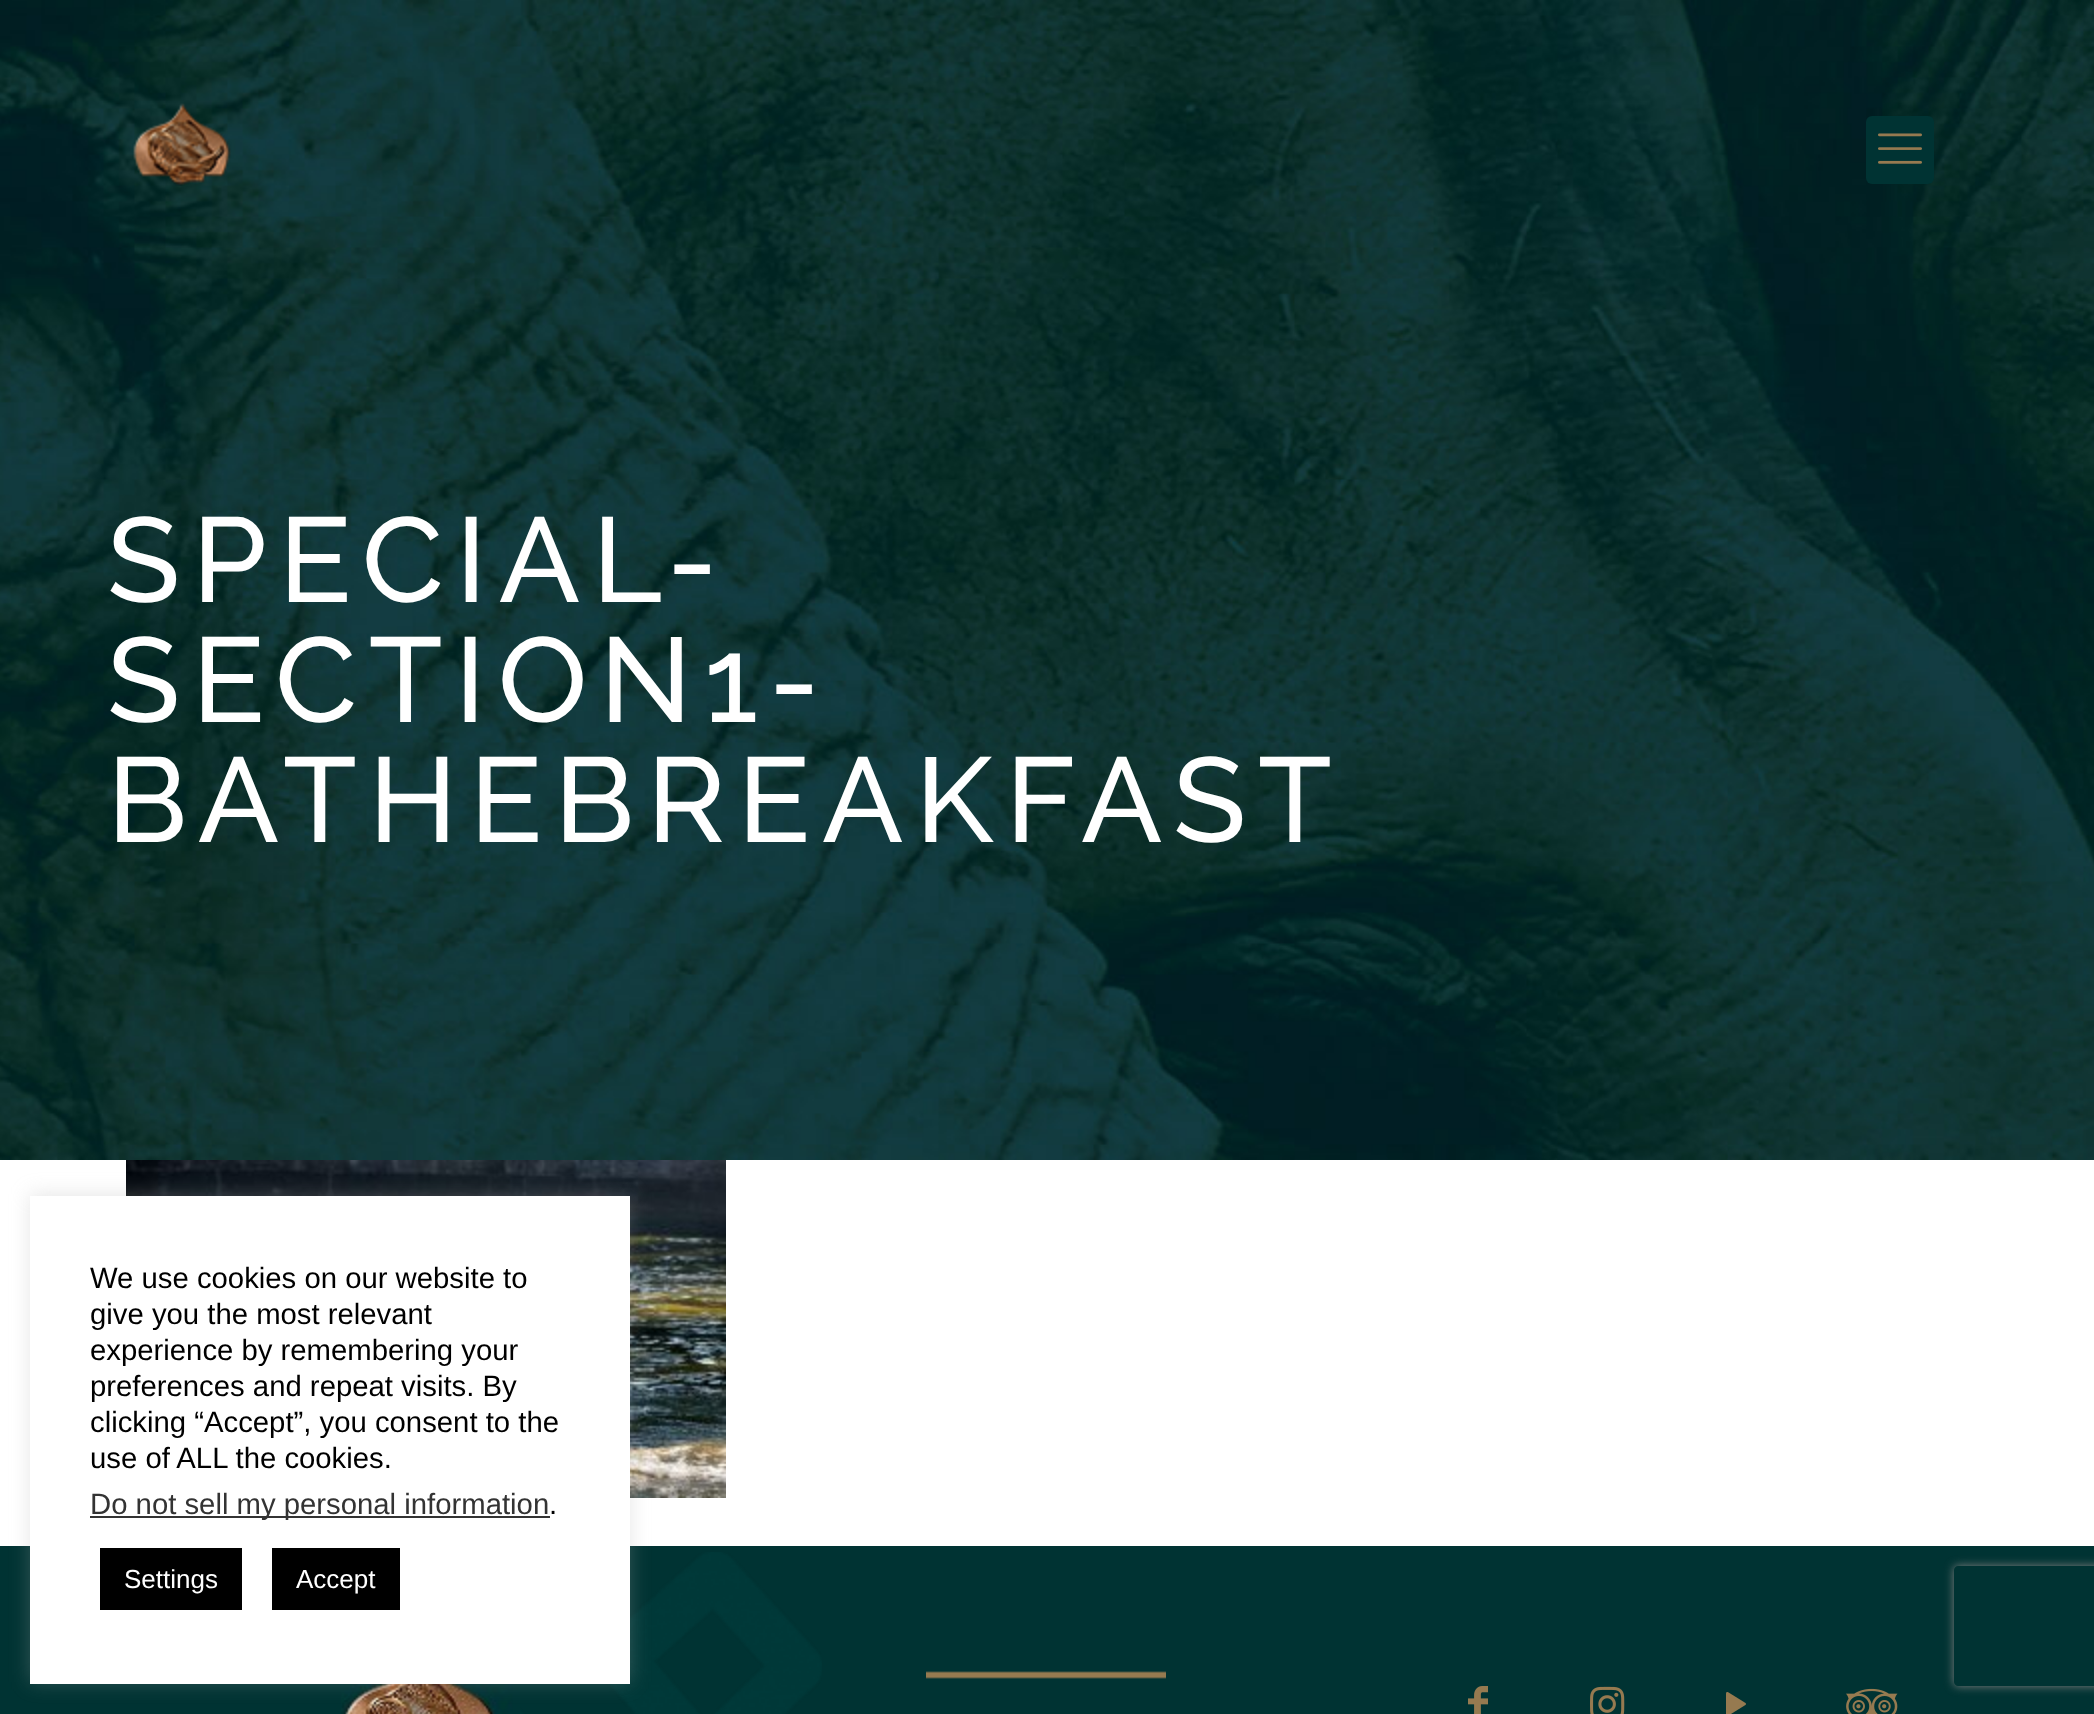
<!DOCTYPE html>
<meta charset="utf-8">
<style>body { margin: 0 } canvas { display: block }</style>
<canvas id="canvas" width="2094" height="1714"></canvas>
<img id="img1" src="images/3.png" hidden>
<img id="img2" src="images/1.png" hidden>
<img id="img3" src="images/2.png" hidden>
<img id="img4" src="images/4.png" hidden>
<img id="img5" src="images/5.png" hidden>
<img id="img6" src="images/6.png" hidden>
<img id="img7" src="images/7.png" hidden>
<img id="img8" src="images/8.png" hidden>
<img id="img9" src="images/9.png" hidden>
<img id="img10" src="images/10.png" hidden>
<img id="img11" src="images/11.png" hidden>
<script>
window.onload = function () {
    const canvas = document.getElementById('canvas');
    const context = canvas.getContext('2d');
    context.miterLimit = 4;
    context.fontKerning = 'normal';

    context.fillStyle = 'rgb(255, 255, 255)';
    context.fillRect(0, 0, 2094, 1714);
    context.drawImage(document.getElementById('img1'), 0, 0, 2094, 1160);
    context.drawImage(document.getElementById('img2'), 133, 103, 98, 83);
    context.fillStyle = 'rgb(0, 51, 51)';
    context.beginPath();
    context.roundRect(1866, 116, 68, 68, 6);
    context.fill();
    context.drawImage(document.getElementById('img3'), 1878, 133, 44, 31);
    context.drawImage(document.getElementById('img4'), 126, 1160, 600, 338);
    context.fillRect(0, 1546, 2094, 168);
    context.drawImage(document.getElementById('img5'), 520, 1552, 302, 162);
    context.drawImage(document.getElementById('img6'), 926, 1671, 240, 8);
    context.drawImage(document.getElementById('img7'), 341, 1684, 179, 30);
    context.drawImage(document.getElementById('img8'), 1468, 1686, 20, 28);
    context.drawImage(document.getElementById('img9'), 1590, 1686, 35, 28);
    context.drawImage(document.getElementById('img10'), 1726, 1692, 20, 22);
    context.drawImage(document.getElementById('img11'), 1846, 1688, 52, 26);
    context.fillStyle = 'rgba(172, 171, 171, 0.3)';
    context.filter = 'blur(10px)';
    context.beginPath();
    context.rect(30, 1194, 600, 488);
    context.fill();
    context.filter = 'none';
    context.fillStyle = 'rgb(255, 255, 255)';
    context.fillRect(30, 1196, 600, 488);
    context.fillStyle = 'rgb(51, 51, 51)';
    context.fillRect(90, 1516, 460, 2);
    context.fillStyle = 'rgb(0, 0, 0)';
    context.fillRect(100, 1548, 142, 62);
    context.fillRect(272, 1548, 128, 62);
    context.save();
    context.beginPath();
    context.moveTo(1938, 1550);
    context.lineTo(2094, 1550);
    context.lineTo(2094, 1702);
    context.lineTo(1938, 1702);
    context.closePath();
    context.moveTo(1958, 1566);
    context.lineTo(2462, 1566);
    context.bezierCurveTo(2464, 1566, 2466, 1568, 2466, 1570);
    context.lineTo(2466, 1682);
    context.bezierCurveTo(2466, 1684, 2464, 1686, 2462, 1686);
    context.lineTo(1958, 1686);
    context.bezierCurveTo(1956, 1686, 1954, 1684, 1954, 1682);
    context.lineTo(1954, 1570);
    context.bezierCurveTo(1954, 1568, 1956, 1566, 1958, 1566);
    context.closePath();
    context.clip('evenodd');
    context.fillStyle = 'rgb(128, 128, 128)';
    context.filter = 'blur(5px)';
    context.beginPath();
    context.roundRect(1954, 1566, 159, 120, 4);
    context.fill();
    context.filter = 'none';
    context.restore();
    context.letterSpacing = '12px';
    context.font = '500 120px Raleway';
    context.fillStyle = 'rgb(255, 255, 255)';
    context.fillText('SPECIAL-', 107, 602);
    context.fillText('SECTION1-', 107, 722);
    context.fillText('BATHEBREAKFAST', 107, 842);
    context.letterSpacing = '0px';
    context.font = '29.3px Liberation Sans';
    context.fillStyle = 'rgb(0, 0, 0)';
    context.fillText('We use cookies on our website to', 90, 1288);
    context.fillText('give you the most relevant', 90, 1324);
    context.fillText('experience by remembering your', 90, 1360);
    context.fillText('preferences and repeat visits. By', 90, 1396);
    context.fillText('clicking “Accept”, you consent to the', 90, 1432);
    context.fillText('use of ALL the cookies.', 90, 1468);
    context.fillStyle = 'rgb(51, 51, 51)';
    context.fillText('Do not sell my personal information', 90, 1514);
    context.fillStyle = 'rgb(0, 0, 0)';
    context.fillText('.', 549, 1514);
    context.font = '26px Liberation Sans';
    context.fillStyle = 'rgb(255, 255, 255)';
    context.fillText('Settings', 124, 1588);
    context.fillText('Accept', 296, 1588);
};
</script>
